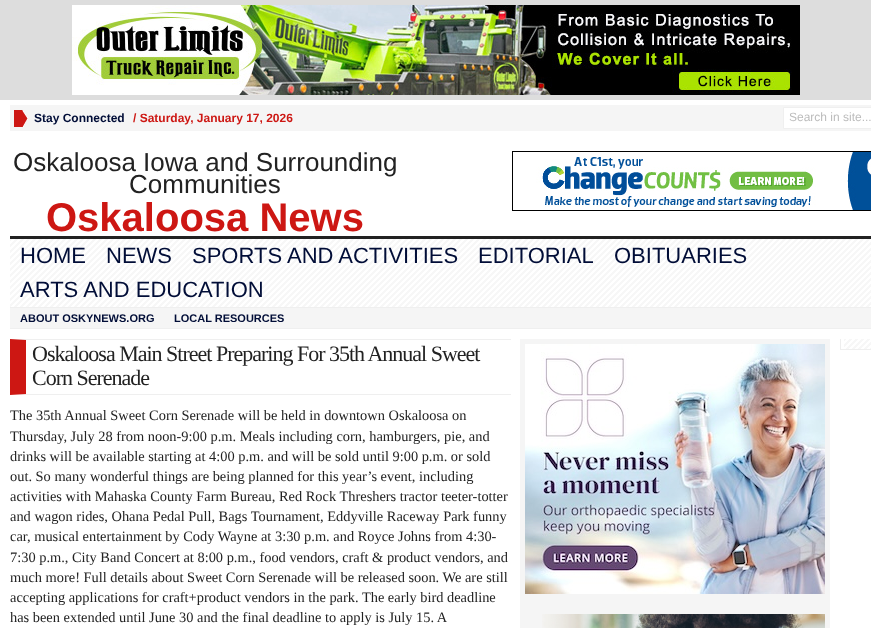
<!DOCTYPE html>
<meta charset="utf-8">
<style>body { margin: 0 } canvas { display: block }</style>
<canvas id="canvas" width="871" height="628"></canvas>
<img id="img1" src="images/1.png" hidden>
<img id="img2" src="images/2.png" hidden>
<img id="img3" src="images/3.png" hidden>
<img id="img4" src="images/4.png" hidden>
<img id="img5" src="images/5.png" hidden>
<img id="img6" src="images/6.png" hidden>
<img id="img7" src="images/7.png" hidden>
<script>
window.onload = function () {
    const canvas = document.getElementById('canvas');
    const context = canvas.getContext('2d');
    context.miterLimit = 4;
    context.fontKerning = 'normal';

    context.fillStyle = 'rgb(221, 221, 221)';
    context.fillRect(0, 0, 871, 628);
    context.drawImage(document.getElementById('img1'), 72, 5, 728, 90);
    context.fillStyle = 'rgb(255, 255, 255)';
    context.fillRect(0, 100, 871, 528);
    context.fillStyle = 'rgb(245, 245, 245)';
    context.fillRect(10, 105, 861, 26);
    context.drawImage(document.getElementById('img2'), 14, 110, 14, 17);
    context.fillStyle = 'rgb(255, 255, 255)';
    context.beginPath();
    context.rect(783.5, 107.5, 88, 21);
    context.fill();
    context.strokeStyle = 'rgb(239, 239, 239)';
    context.stroke();
    context.fillStyle = 'rgb(34, 34, 34)';
    context.fillRect(10, 236, 861, 3);
    context.drawImage(document.getElementById('img3'), 512, 151, 359, 60);
    context.drawImage(document.getElementById('img4'), 10, 239, 861, 68);
    context.fillStyle = 'rgb(239, 239, 239)';
    context.fillRect(10, 307, 861, 1);
    context.fillStyle = 'rgb(245, 245, 245)';
    context.fillRect(10, 308, 861, 20);
    context.fillStyle = 'rgb(239, 239, 239)';
    context.fillRect(10, 328, 861, 1);
    context.beginPath();
    context.moveTo(10, 339);
    context.lineTo(511, 339);
    context.lineTo(511, 340);
    context.lineTo(26, 340);
    context.closePath();
    context.fill();
    context.beginPath();
    context.moveTo(511, 395);
    context.lineTo(10, 395);
    context.lineTo(26, 394);
    context.lineTo(511, 394);
    context.closePath();
    context.fill();
    context.fillStyle = 'rgb(205, 23, 19)';
    context.beginPath();
    context.moveTo(10, 395);
    context.lineTo(10, 339);
    context.lineTo(26, 340);
    context.lineTo(26, 394);
    context.closePath();
    context.fill();
    context.fillStyle = 'rgb(245, 245, 245)';
    context.fillRect(520, 339, 310, 289);
    context.drawImage(document.getElementById('img5'), 525, 344, 300, 250);
    context.drawImage(document.getElementById('img6'), 542, 614, 283, 14);
    context.drawImage(document.getElementById('img7'), 840, 339, 31, 10);
    context.fillStyle = 'rgb(239, 239, 239)';
    context.fillRect(840, 349, 31, 1);
    context.font = 'bold 12px Liberation Sans';
    context.fillStyle = 'rgb(1, 13, 55)';
    context.fillText('Stay Connected', 34, 122);
    context.fillStyle = 'rgb(205, 23, 19)';
    context.fillText('/ Saturday, January 17, 2026', 133, 122);
    context.font = '12px Liberation Sans';
    context.fillStyle = 'rgb(188, 188, 188)';
    context.fillText('Search in site...', 789, 121);
    context.font = '26px Liberation Sans';
    context.fillStyle = 'rgb(34, 34, 34)';
    context.fillText('Oskaloosa Iowa and Surrounding', 13, 171);
    context.fillText('Communities', 129, 193);
    context.font = 'bold 40px Liberation Sans';
    context.fillStyle = 'rgb(205, 23, 19)';
    context.fillText('Oskaloosa News', 46, 231);
    context.font = '22px Liberation Sans';
    context.fillStyle = 'rgb(1, 13, 55)';
    context.fillText('HOME', 20, 263);
    context.fillText('NEWS', 106, 263);
    context.fillText('SPORTS AND ACTIVITIES', 192, 263);
    context.fillText('EDITORIAL', 478, 263);
    context.fillText('OBITUARIES', 614, 263);
    context.fillText('ARTS AND EDUCATION', 20, 297);
    context.font = 'bold 11px Liberation Sans';
    context.fillText('ABOUT OSKYNEWS.ORG', 20, 322);
    context.fillText('LOCAL RESOURCES', 174, 322);
    context.letterSpacing = '-1px';
    context.font = '22px Liberation Serif';
    context.fillStyle = 'rgb(34, 34, 34)';
    context.fillText('Oskaloosa Main Street Preparing For 35th Annual Sweet', 32, 361);
    context.fillText('Corn Serenade', 32, 385);
    context.letterSpacing = '0px';
    context.font = '14.4px Liberation Serif';
    context.fillText('The 35th Annual Sweet Corn Serenade will be held in downtown Oskaloosa on', 10, 420);
    context.fillText('Thursday, July 28 from noon-9:00 p.m. Meals including corn, hamburgers, pie, and', 10, 441);
    context.fillText('drinks will be available starting at 4:00 p.m. and will be sold until 9:00 p.m. or sold', 10, 461);
    context.fillText('out. So many wonderful things are being planned for this year’s event, including', 10, 481);
    context.fillText('activities with Mahaska County Farm Bureau, Red Rock Threshers tractor teeter-totter', 10, 501);
    context.fillText('and wagon rides, Ohana Pedal Pull, Bags Tournament, Eddyville Raceway Park funny', 10, 521);
    context.fillText('car, musical entertainment by Cody Wayne at 3:30 p.m. and Royce Johns from 4:30-', 10, 541);
    context.fillText('7:30 p.m., City Band Concert at 8:00 p.m., food vendors, craft & product vendors, and', 10, 562);
    context.fillText('much more! Full details about Sweet Corn Serenade will be released soon. We are still', 10, 582);
    context.fillText('accepting applications for craft+product vendors in the park. The early bird deadline', 10, 602);
    context.fillText('has been extended until June 30 and the final deadline to apply is July 15. A', 10, 622);
};
</script>
